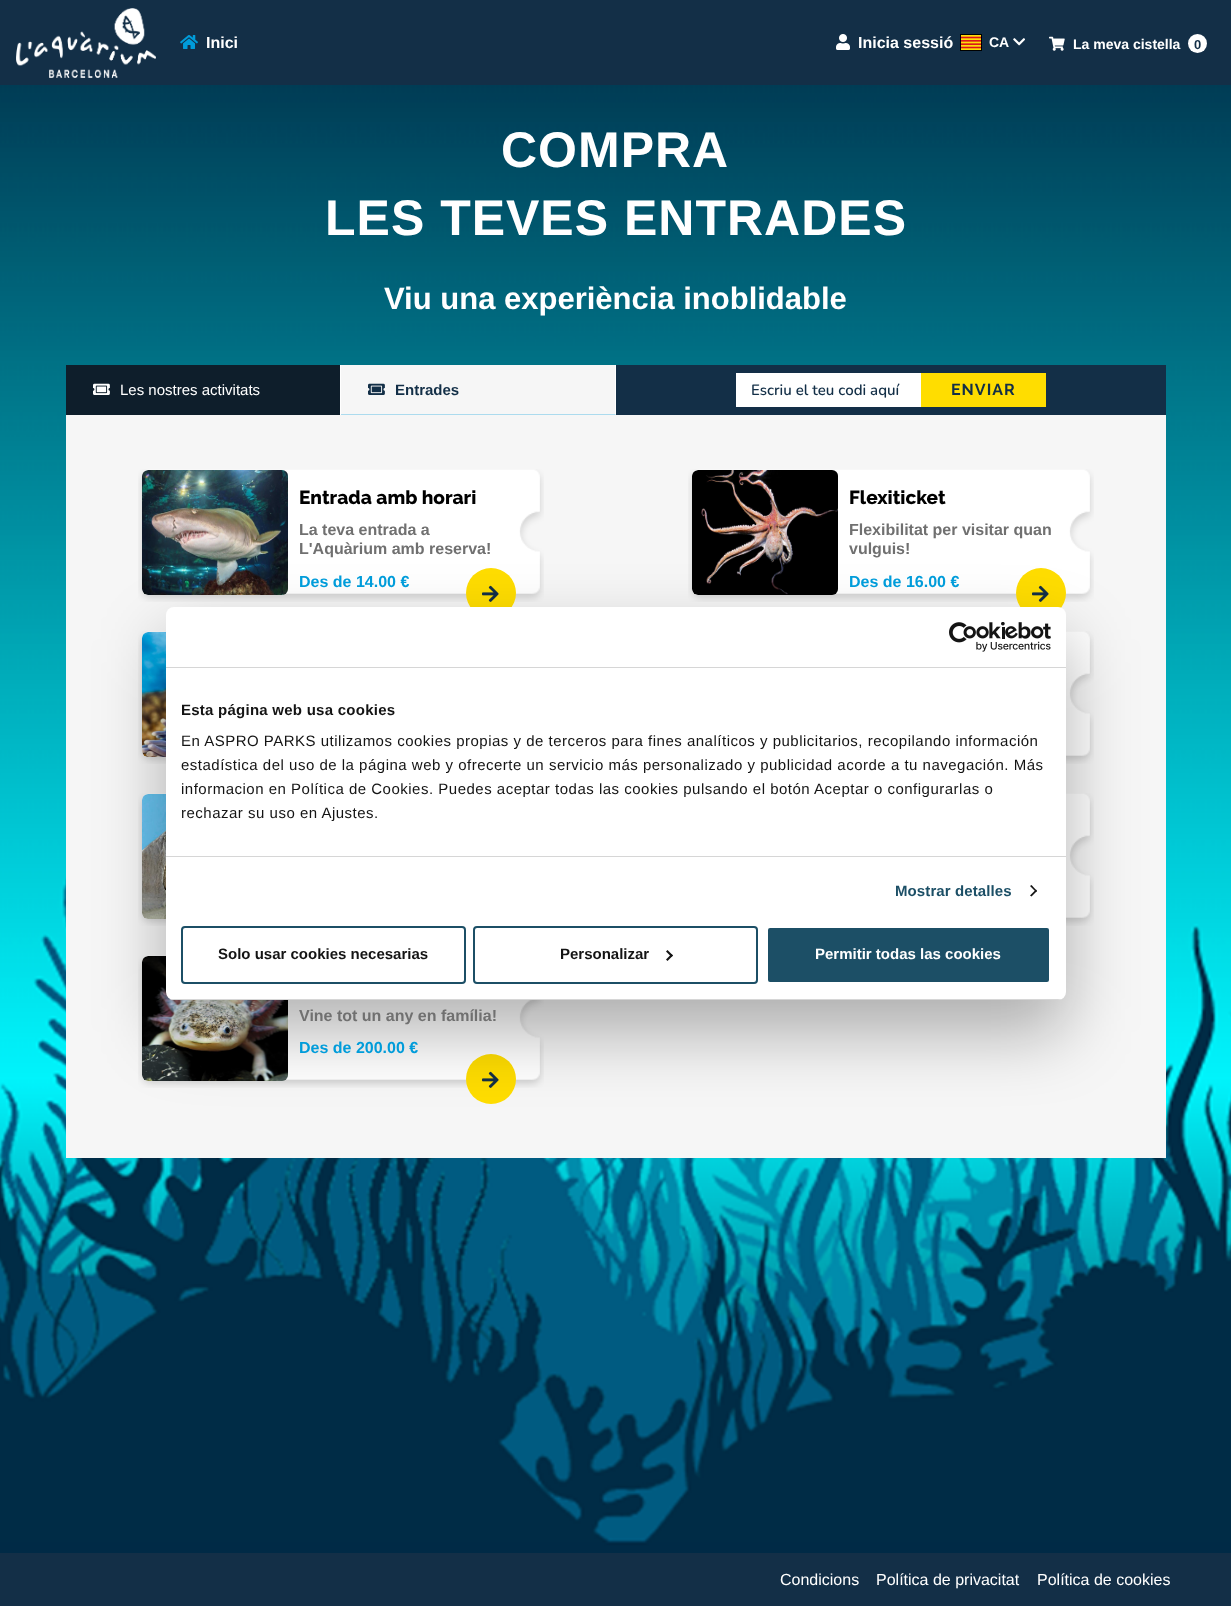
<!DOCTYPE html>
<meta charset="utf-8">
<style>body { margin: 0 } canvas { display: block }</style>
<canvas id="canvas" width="1231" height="1606"></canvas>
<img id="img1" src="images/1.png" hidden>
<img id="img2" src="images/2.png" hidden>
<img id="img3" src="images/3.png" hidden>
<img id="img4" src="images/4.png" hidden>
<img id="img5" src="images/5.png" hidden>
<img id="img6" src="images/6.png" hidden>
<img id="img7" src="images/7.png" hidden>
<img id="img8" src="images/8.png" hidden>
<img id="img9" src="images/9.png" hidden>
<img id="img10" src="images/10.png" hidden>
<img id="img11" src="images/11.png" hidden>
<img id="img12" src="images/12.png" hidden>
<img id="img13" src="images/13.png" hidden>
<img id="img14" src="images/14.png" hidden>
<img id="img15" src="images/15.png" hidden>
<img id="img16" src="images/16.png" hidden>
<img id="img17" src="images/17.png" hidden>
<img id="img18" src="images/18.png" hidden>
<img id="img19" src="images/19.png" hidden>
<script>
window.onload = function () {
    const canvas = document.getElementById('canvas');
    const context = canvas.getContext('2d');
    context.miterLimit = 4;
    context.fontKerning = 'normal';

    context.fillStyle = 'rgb(255, 255, 255)';
    context.fillRect(0, 0, 1231, 1606);
    context.fillStyle = 'rgb(19, 47, 71)';
    context.fillRect(0, 0, 1231, 85);
    context.drawImage(document.getElementById('img1'), 16, 8, 140, 70);
    context.drawImage(document.getElementById('img2'), 180, 35, 18, 14);
    context.drawImage(document.getElementById('img3'), 836, 34, 14, 16);
    context.drawImage(document.getElementById('img4'), 961, 35, 20, 15);
    context.strokeStyle = 'rgb(0, 0, 0)';
    context.strokeRect(960.5, 34.5, 21, 16);
    context.drawImage(document.getElementById('img5'), 1013, 38, 12, 8);
    context.drawImage(document.getElementById('img6'), 1049, 36, 16, 15);
    context.fillStyle = 'rgb(255, 255, 255)';
    context.beginPath();
    context.arc(1197.5, 43.5, 9.5, 0, 2 * Math.PI);
    context.fill();
    context.drawImage(document.getElementById('img7'), 0, 85, 1231, 1468);
    context.fillStyle = 'rgb(14, 30, 43)';
    context.fillRect(66, 365, 274, 50);
    context.fillStyle = 'rgb(255, 255, 255)';
    context.fillRect(340, 365, 1, 50);
    context.drawImage(document.getElementById('img8'), 93, 383, 17, 12);
    context.fillStyle = 'rgb(246, 246, 246)';
    context.fillRect(341, 365, 275, 50);
    context.fillStyle = 'rgb(255, 255, 255)';
    context.beginPath();
    context.moveTo(616, 365);
    context.lineTo(616, 415);
    context.lineTo(615, 414);
    context.lineTo(615, 365);
    context.closePath();
    context.fill();
    context.fillStyle = 'rgba(0, 156, 218, 0.3)';
    context.beginPath();
    context.moveTo(616, 415);
    context.lineTo(341, 415);
    context.lineTo(341, 414);
    context.lineTo(615, 414);
    context.closePath();
    context.fill();
    context.drawImage(document.getElementById('img9'), 368, 383, 17, 12);
    context.fillStyle = 'rgb(19, 47, 71)';
    context.fillRect(616, 365, 550, 50);
    context.fillStyle = 'rgb(255, 255, 255)';
    context.fillRect(736, 373, 185, 34);
    context.fillStyle = 'rgb(255, 221, 0)';
    context.fillRect(921, 373, 125, 34);
    context.fillStyle = 'rgb(246, 246, 246)';
    context.fillRect(66, 415, 1100, 743);
    context.drawImage(document.getElementById('img10'), 138, 469, 406, 133);
    context.drawImage(document.getElementById('img11'), 142, 470, 146, 125);
    context.fillStyle = 'rgb(255, 221, 0)';
    context.beginPath();
    context.arc(491, 593, 25, 0, 2 * Math.PI);
    context.fill();
    context.drawImage(document.getElementById('img12'), 482, 585, 17, 17);
    context.drawImage(document.getElementById('img10'), 688, 469, 406, 133);
    context.drawImage(document.getElementById('img13'), 692, 470, 146, 125);
    context.beginPath();
    context.arc(1041, 593, 25, 0, 2 * Math.PI);
    context.fill();
    context.drawImage(document.getElementById('img12'), 1032, 585, 17, 17);
    context.drawImage(document.getElementById('img14'), 138, 631, 28, 133);
    context.drawImage(document.getElementById('img15'), 142, 632, 24, 125);
    context.drawImage(document.getElementById('img16'), 1066, 631, 28, 133);
    context.drawImage(document.getElementById('img14'), 138, 793, 28, 133);
    context.drawImage(document.getElementById('img17'), 142, 794, 24, 125);
    context.drawImage(document.getElementById('img16'), 1066, 793, 28, 133);
    context.drawImage(document.getElementById('img10'), 138, 955, 406, 133);
    context.drawImage(document.getElementById('img18'), 142, 956, 146, 125);
    context.beginPath();
    context.arc(491, 1079, 25, 0, 2 * Math.PI);
    context.fill();
    context.drawImage(document.getElementById('img12'), 482, 1071, 17, 17);
    context.fillStyle = 'rgb(19, 47, 71)';
    context.fillRect(0, 1553, 1231, 53);
    context.fillStyle = 'rgba(0, 0, 0, 0.3)';
    context.filter = 'blur(34px)';
    context.beginPath();
    context.roundRect(166, 639, 900, 393, 8);
    context.fill();
    context.filter = 'none';
    context.fillStyle = 'rgb(255, 255, 255)';
    context.beginPath();
    context.roundRect(166, 607, 900, 393, 8);
    context.fill();
    context.fillStyle = 'rgb(214, 214, 214)';
    context.fillRect(166, 667, 900, 1);
    context.drawImage(document.getElementById('img19'), 949, 622, 102, 30);
    context.fillRect(166, 856, 900, 1);
    context.fillStyle = 'rgb(20, 20, 20)';
    context.beginPath();
    context.moveTo(1031.5, 885);
    context.lineTo(1037, 891);
    context.lineTo(1036, 892);
    context.lineTo(1030, 886);
    context.closePath();
    context.fill();
    context.beginPath();
    context.moveTo(1036, 889.5);
    context.lineTo(1037, 891);
    context.lineTo(1031.5, 896.5);
    context.lineTo(1030, 895.5);
    context.closePath();
    context.fill();
    context.save();
    context.beginPath();
    context.roundRect(166, 607, 900, 393, 8);
    context.clip();
    context.fillStyle = 'rgb(214, 214, 214)';
    context.fillRect(166, 999, 900, 1);
    context.restore();
    context.beginPath();
    context.roundRect(182, 927, 283, 56, 3);
    context.strokeStyle = 'rgb(28, 79, 102)';
    context.lineWidth = 2;
    context.stroke();
    context.beginPath();
    context.roundRect(474, 927, 283, 56, 3);
    context.stroke();
    context.beginPath();
    context.moveTo(667.5, 950);
    context.lineTo(673, 955.5);
    context.lineTo(671.5, 957);
    context.lineTo(666, 951.5);
    context.closePath();
    context.fill();
    context.beginPath();
    context.moveTo(671.5, 954);
    context.lineTo(673, 955.5);
    context.lineTo(667.5, 961);
    context.lineTo(666, 959.5);
    context.closePath();
    context.fill();
    context.fillStyle = 'rgb(28, 79, 102)';
    context.beginPath();
    context.roundRect(767, 927, 283, 56, 3);
    context.fill();
    context.strokeStyle = 'rgb(255, 255, 255)';
    context.stroke();
    context.font = 'bold 16px Liberation Sans';
    context.fillStyle = 'rgb(255, 255, 255)';
    context.fillText('Inici', 206, 48);
    context.fillText('Inicia sessió', 858, 48);
    context.font = 'bold 14px Liberation Sans';
    context.fillText('CA', 989, 47);
    context.fillText('La meva cistella', 1073, 49);
    context.font = 'bold 13px Liberation Sans';
    context.fillStyle = 'rgb(19, 47, 71)';
    context.fillText('0', 1194, 49);
    context.letterSpacing = '1px';
    context.font = 'bold 50px Liberation Sans';
    context.fillStyle = 'rgb(255, 255, 255)';
    context.fillText('COMPRA', 501, 167);
    context.fillText('LES TEVES ENTRADES', 325, 235);
    context.letterSpacing = '0px';
    context.font = 'bold 31px Liberation Sans';
    context.fillText('Viu una experiència inoblidable', 384, 309);
    context.font = '15px Liberation Sans';
    context.fillText('Les nostres activitats', 120, 395);
    context.font = 'bold 15px Liberation Sans';
    context.fillStyle = 'rgb(19, 47, 71)';
    context.fillText('Entrades', 395, 395);
    context.font = '600 15px Nunito';
    context.fillText('Escriu el teu codi aquí', 751, 395);
    context.letterSpacing = '1px';
    context.font = 'bold 16px Raleway';
    context.fillText('ENVIAR', 951, 395);
    context.letterSpacing = '0px';
    context.font = '800 19px Raleway';
    context.fillStyle = 'rgb(0, 0, 0)';
    context.fillText('Entrada amb horari', 299, 504);
    context.font = 'bold 16px Liberation Sans';
    context.fillStyle = 'rgb(112, 112, 112)';
    context.fillText('La teva entrada a', 299, 535);
    context.fillText('L\'Aquàrium amb reserva!', 299, 554);
    context.fillStyle = 'rgb(0, 156, 218)';
    context.fillText('Des de 14.00 €', 299, 587);
    context.font = '800 19px Raleway';
    context.fillStyle = 'rgb(0, 0, 0)';
    context.fillText('Flexiticket', 849, 504);
    context.font = 'bold 16px Liberation Sans';
    context.fillStyle = 'rgb(112, 112, 112)';
    context.fillText('Flexibilitat per visitar quan', 849, 535);
    context.fillText('vulguis!', 849, 554);
    context.fillStyle = 'rgb(0, 156, 218)';
    context.fillText('Des de 16.00 €', 849, 587);
    context.fillStyle = 'rgb(112, 112, 112)';
    context.fillText('Vine tot un any en família!', 299, 1021);
    context.fillStyle = 'rgb(0, 156, 218)';
    context.fillText('Des de 200.00 €', 299, 1053);
    context.font = '16px Liberation Sans';
    context.fillStyle = 'rgb(255, 255, 255)';
    context.fillText('Condicions', 780, 1585);
    context.fillText('Política de privacitat', 876, 1585);
    context.fillText('Política de cookies', 1037, 1585);
    context.letterSpacing = '0.25px';
    context.font = 'bold 15px Liberation Sans';
    context.fillStyle = 'rgb(20, 20, 20)';
    context.fillText('Esta página web usa cookies', 181, 715);
    context.letterSpacing = '0.5px';
    context.font = '15px Liberation Sans';
    context.fillText('En ASPRO PARKS utilizamos cookies propias y de terceros para fines analíticos y publicitarios, recopilando información', 181, 746);
    context.fillText('estadística del uso de la página web y ofrecerte un servicio más personalizado y publicidad acorde a tu navegación. Más', 181, 770);
    context.fillText('informacion en Política de Cookies. Puedes aceptar todas las cookies pulsando el botón Aceptar o configurarlas o', 181, 794);
    context.fillText('rechazar su uso en Ajustes.', 181, 818);
    context.letterSpacing = '0.1px';
    context.font = 'bold 15px Liberation Sans';
    context.fillStyle = 'rgb(28, 79, 102)';
    context.fillText('Mostrar detalles', 895, 896);
    context.letterSpacing = '0px';
    context.fillStyle = 'rgb(20, 20, 20)';
    context.fillText('Solo usar cookies necesarias', 218, 959);
    context.fillText('Personalizar', 560, 959);
    context.fillStyle = 'rgb(255, 255, 255)';
    context.fillText('Permitir todas las cookies', 815, 959);
};
</script>
